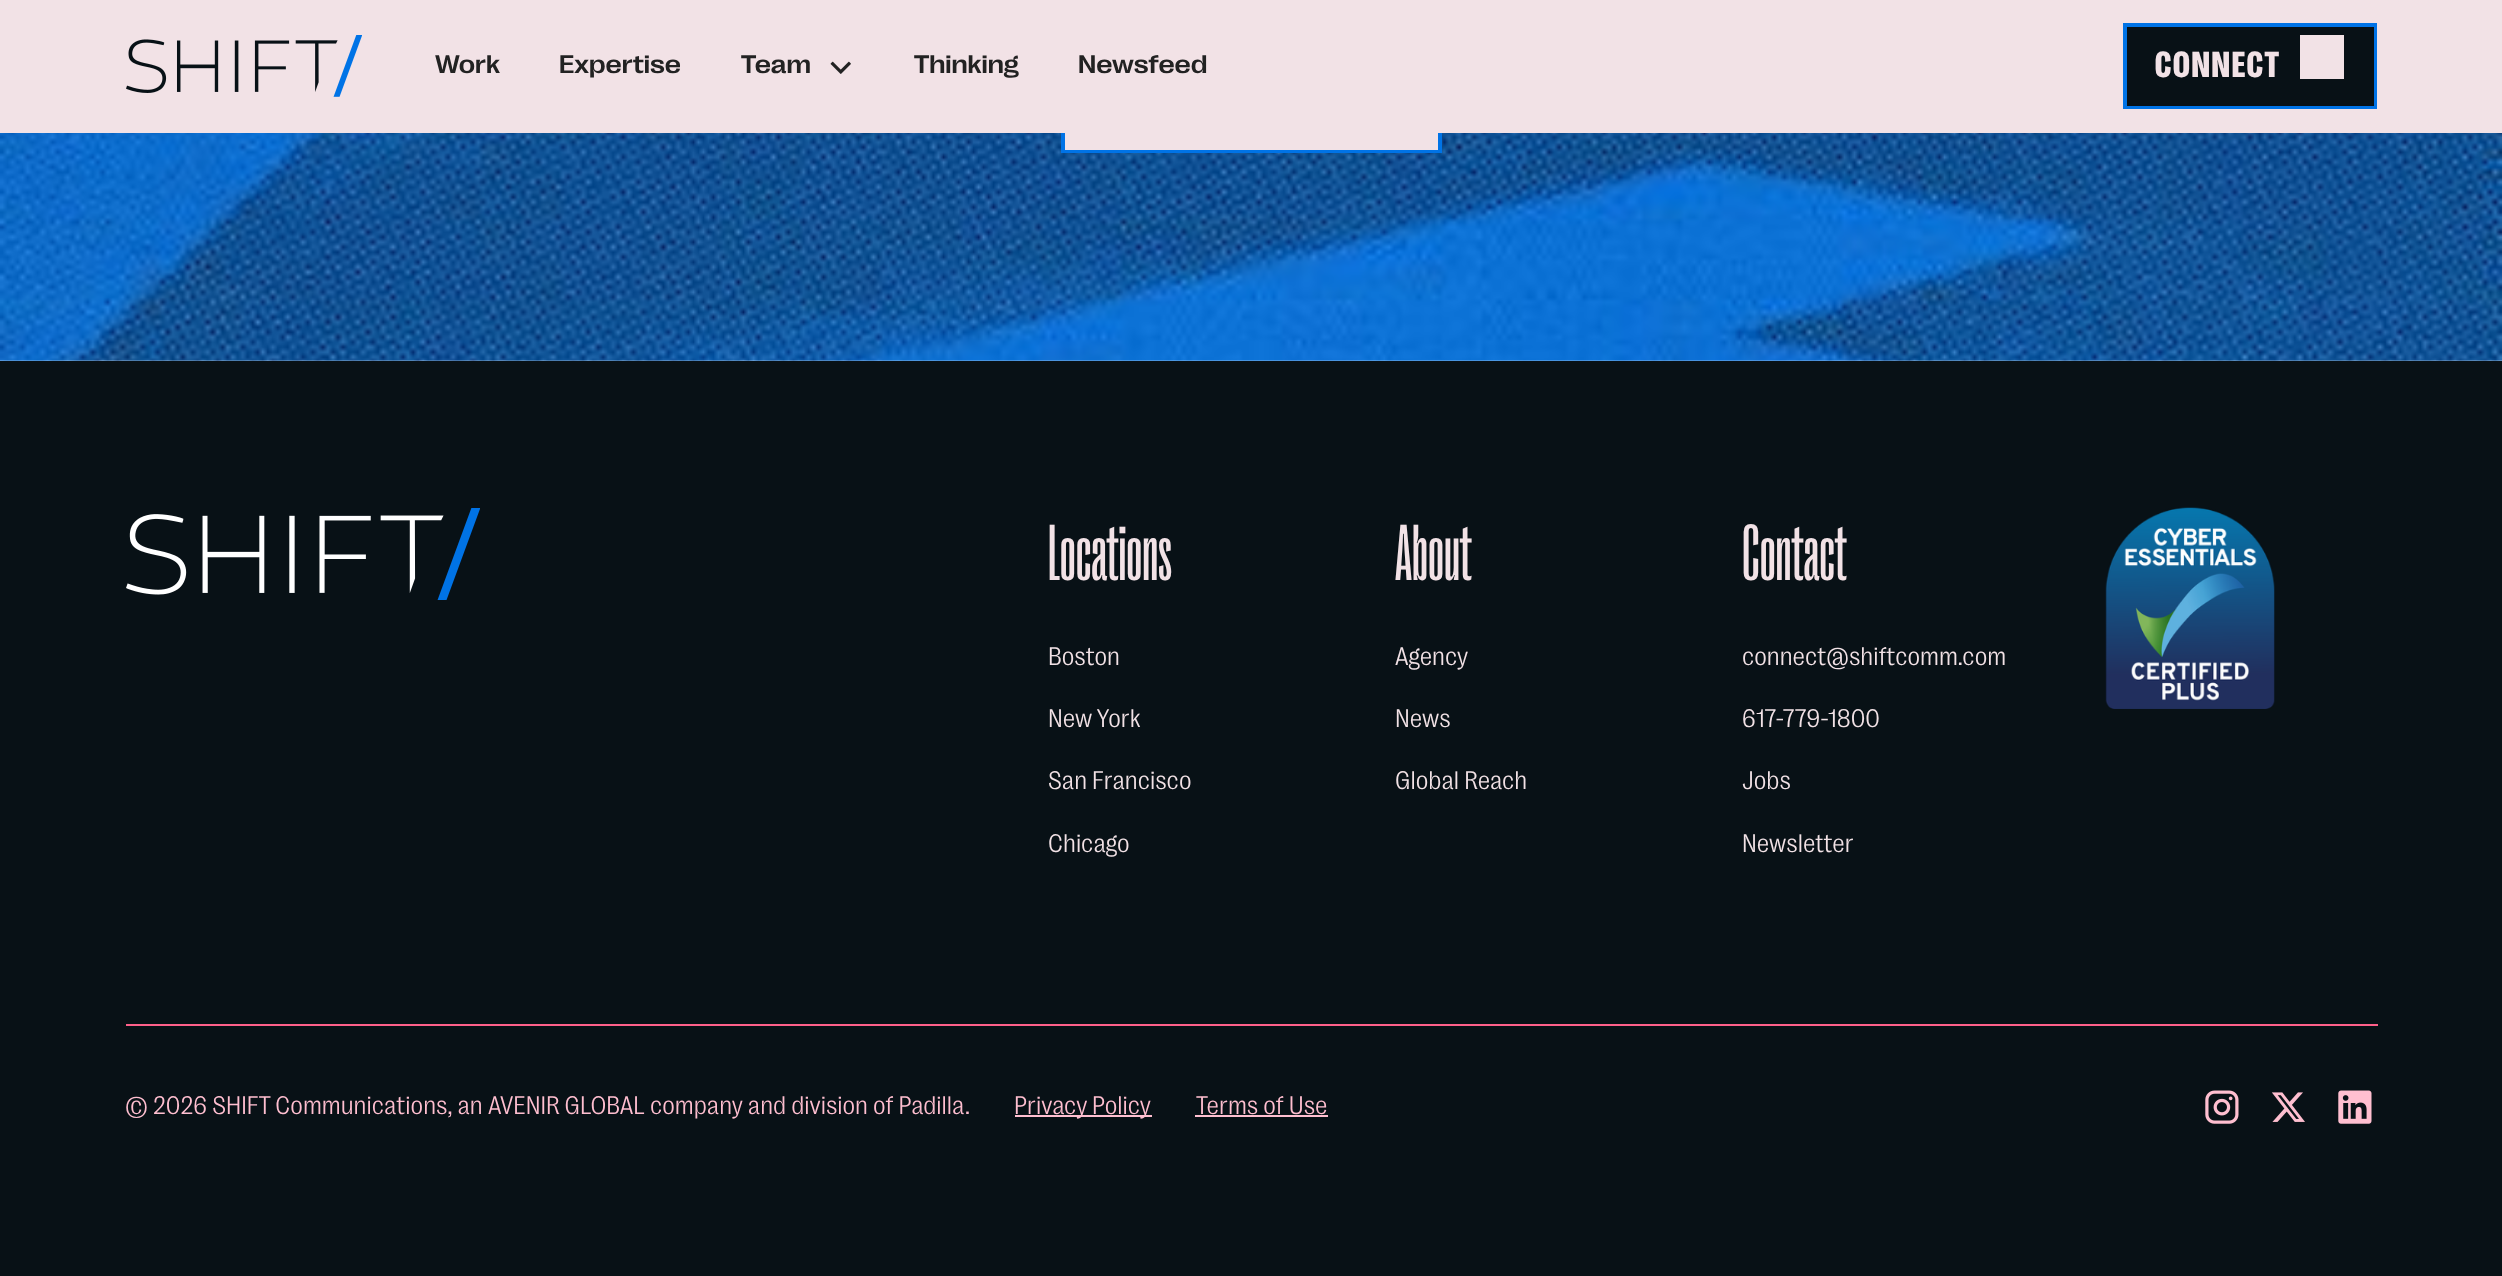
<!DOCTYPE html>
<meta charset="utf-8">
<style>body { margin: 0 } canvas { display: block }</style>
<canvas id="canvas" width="2502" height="1276"></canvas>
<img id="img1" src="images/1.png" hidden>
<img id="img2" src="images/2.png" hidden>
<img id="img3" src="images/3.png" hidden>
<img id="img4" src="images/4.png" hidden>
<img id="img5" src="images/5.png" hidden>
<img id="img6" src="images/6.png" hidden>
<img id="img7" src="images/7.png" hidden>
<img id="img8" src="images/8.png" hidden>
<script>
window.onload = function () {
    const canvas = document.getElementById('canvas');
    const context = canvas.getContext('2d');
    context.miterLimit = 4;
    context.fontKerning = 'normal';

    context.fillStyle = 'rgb(255, 255, 255)';
    context.fillRect(0, 0, 2502, 1276);
    context.drawImage(document.getElementById('img1'), 0, 133, 2502, 228);
    context.fillStyle = 'rgb(242, 226, 230)';
    context.fillRect(1065, 133, 373, 17);
    context.fillStyle = 'rgb(0, 115, 230)';
    context.beginPath();
    context.moveTo(1061, 37);
    context.lineTo(1442, 37);
    context.lineTo(1442, 153);
    context.lineTo(1061, 153);
    context.closePath();
    context.moveTo(1065, 41);
    context.lineTo(1065, 150);
    context.lineTo(1438, 150);
    context.lineTo(1438, 41);
    context.closePath();
    context.fill('evenodd');
    context.fillStyle = 'rgb(242, 226, 230)';
    context.fillRect(0, 0, 2502, 133);
    context.drawImage(document.getElementById('img2'), 126, 35, 236, 62);
    context.drawImage(document.getElementById('img3'), 830, 61, 21, 13);
    context.fillStyle = 'rgb(8, 17, 22)';
    context.fillRect(2127, 27, 247, 79);
    context.fillStyle = 'rgb(0, 115, 230)';
    context.beginPath();
    context.moveTo(2377, 23);
    context.lineTo(2377, 109);
    context.lineTo(2123, 109);
    context.lineTo(2123, 23);
    context.closePath();
    context.moveTo(2127, 27);
    context.lineTo(2127, 106);
    context.lineTo(2374, 106);
    context.lineTo(2374, 27);
    context.closePath();
    context.fill('evenodd');
    context.fillStyle = 'rgb(242, 226, 230)';
    context.fillRect(2300, 35, 44, 44);
    context.fillStyle = 'rgb(8, 17, 22)';
    context.fillRect(0, 361, 2502, 915);
    context.drawImage(document.getElementById('img4'), 126, 508, 354, 92);
    context.drawImage(document.getElementById('img5'), 2105, 507, 170, 202);
    context.fillStyle = 'rgb(254, 96, 138)';
    context.fillRect(126, 1024, 2252, 2);
    context.fillStyle = 'rgb(255, 191, 208)';
    context.fillRect(1015, 1115, 137, 2);
    context.fillRect(1195, 1115, 133, 2);
    context.drawImage(document.getElementById('img6'), 2205, 1090, 34, 34);
    context.drawImage(document.getElementById('img7'), 2271, 1092, 34, 30);
    context.drawImage(document.getElementById('img8'), 2338, 1090, 34, 34);
    context.font = '500 25.8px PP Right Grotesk';
    context.fillStyle = 'rgb(34, 34, 34)';
    context.fillText('Work', 435, 73);
    context.fillText('Expertise', 559, 73);
    context.fillText('Team', 741, 73);
    context.fillText('Thinking', 914, 73);
    context.fillText('Newsfeed', 1078, 73);
    context.letterSpacing = '1.75px';
    context.font = '900 37px PP Right Grotesk';
    context.fillStyle = 'rgb(242, 226, 230)';
    context.fillText('CONNECT', 2155, 77);
    context.letterSpacing = '0px';
    context.font = '81px PP Right Grotesk';
    context.fillText('Locations', 1048, 580);
    context.font = '300 25.8px PP Right Grotesk';
    context.fillText('Boston', 1048, 665);
    context.fillText('New York', 1048, 727);
    context.fillText('San Francisco', 1048, 789);
    context.fillText('Chicago', 1048, 852);
    context.font = '81px PP Right Grotesk';
    context.fillText('About', 1395, 580);
    context.font = '300 25.8px PP Right Grotesk';
    context.fillText('Agency', 1395, 665);
    context.fillText('News', 1395, 727);
    context.fillText('Global Reach', 1395, 789);
    context.font = '81px PP Right Grotesk';
    context.fillText('Contact', 1742, 580);
    context.font = '300 25.8px PP Right Grotesk';
    context.fillText('connect@shiftcomm.com', 1742, 665);
    context.fillText('617-779-1800', 1742, 727);
    context.fillText('Jobs', 1742, 789);
    context.fillText('Newsletter', 1742, 852);
    context.fillStyle = 'rgb(255, 191, 208)';
    context.fillText('© 2026 SHIFT Communications, an', 125, 1114);
    context.fillText('AVENIR GLOBAL', 488, 1114);
    context.fillText('company and division of Padilla', 650, 1114);
    context.fillText('.', 965, 1114);
    context.fillText('Privacy Policy', 1014, 1114);
    context.fillText('Terms of Use', 1196, 1114);
};
</script>
